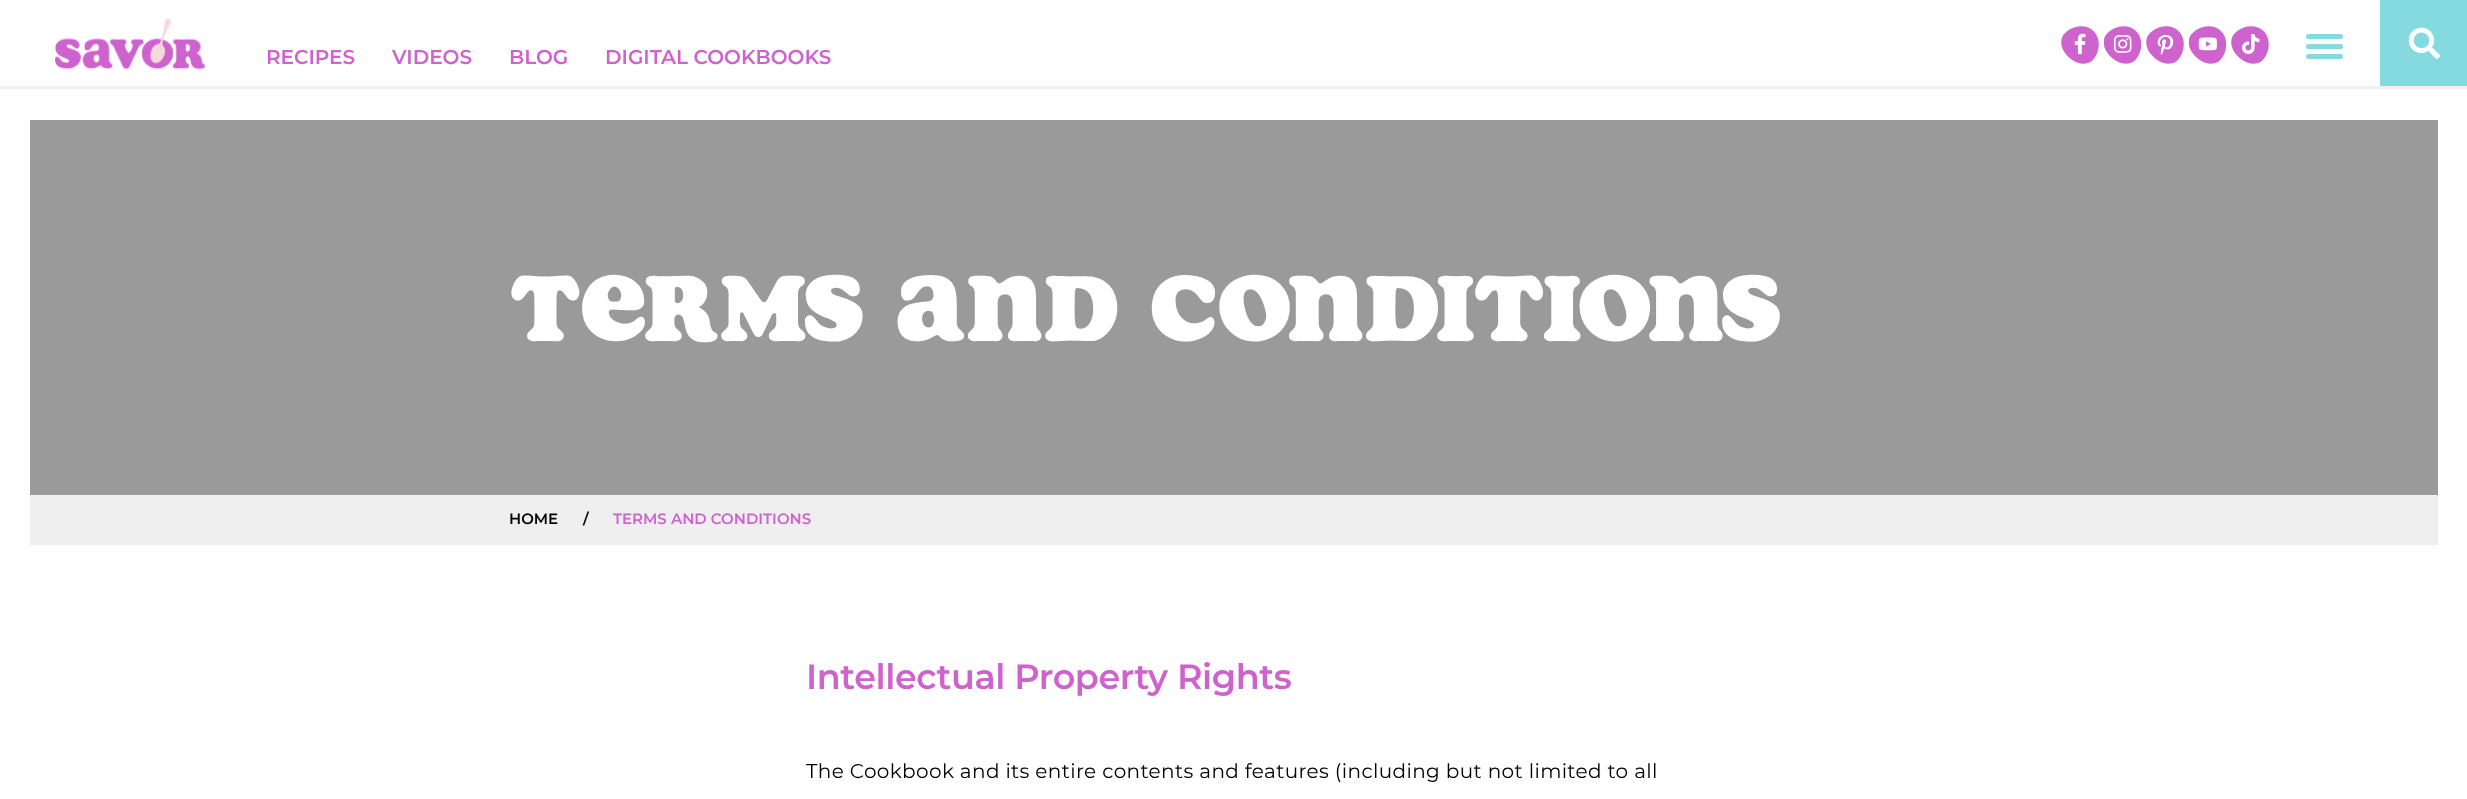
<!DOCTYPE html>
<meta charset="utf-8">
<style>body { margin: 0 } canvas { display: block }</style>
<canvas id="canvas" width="2467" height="799"></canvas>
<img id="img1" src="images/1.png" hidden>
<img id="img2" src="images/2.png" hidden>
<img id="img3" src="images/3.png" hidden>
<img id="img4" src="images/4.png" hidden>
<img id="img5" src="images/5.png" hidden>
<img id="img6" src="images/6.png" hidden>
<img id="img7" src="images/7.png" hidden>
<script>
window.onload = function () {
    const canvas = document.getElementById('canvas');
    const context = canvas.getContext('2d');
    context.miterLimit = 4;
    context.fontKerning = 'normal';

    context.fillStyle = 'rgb(255, 255, 255)';
    context.fillRect(0, 0, 2467, 799);
    context.fillStyle = 'rgb(239, 239, 239)';
    context.fillRect(0, 86, 2467, 3);
    context.drawImage(document.getElementById('img1'), 55, 18, 150, 52);
    context.fillStyle = 'rgb(132, 218, 222)';
    context.beginPath();
    context.roundRect(2306, 54, 37, 5, 2.5);
    context.fill();
    context.beginPath();
    context.roundRect(2306, 44, 37, 5, 2.5);
    context.fill();
    context.beginPath();
    context.roundRect(2306, 34, 37, 5, 2.5);
    context.fill();
    context.fillRect(2380, 0, 87, 86);
    context.drawImage(document.getElementById('img2'), 2408, 27, 32, 32);
    context.drawImage(document.getElementById('img3'), 2061, 26, 38, 38);
    context.drawImage(document.getElementById('img4'), 2104, 26, 37, 38);
    context.drawImage(document.getElementById('img5'), 2146, 26, 38, 38);
    context.drawImage(document.getElementById('img6'), 2189, 26, 37, 38);
    context.drawImage(document.getElementById('img7'), 2231, 26, 38, 38);
    context.fillStyle = 'rgb(154, 154, 154)';
    context.fillRect(30, 120, 2408, 375);
    context.fillStyle = 'rgb(239, 239, 239)';
    context.fillRect(30, 495, 2408, 50);
    context.font = '600 20px Montserrat';
    context.fillStyle = 'rgb(207, 99, 206)';
    context.fillText('RECIPES', 266, 64);
    context.fillText('VIDEOS', 392, 64);
    context.fillText('BLOG', 509, 64);
    context.fillText('DIGITAL COOKBOOKS', 605, 64);
    context.letterSpacing = '1.25px';
    context.font = '100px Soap';
    context.fillStyle = 'rgb(255, 255, 255)';
    context.fillText('Terms and Conditions', 511, 341);
    context.letterSpacing = '0px';
    context.font = '600 15px Montserrat';
    context.fillStyle = 'rgb(0, 0, 0)';
    context.fillText('HOME', 509, 524);
    context.fillText('/', 583, 524);
    context.fillStyle = 'rgb(207, 99, 206)';
    context.fillText('TERMS AND CONDITIONS', 613, 524);
    context.letterSpacing = '-0.4px';
    context.font = '600 35px Montserrat';
    context.fillText('Intellectual Property Rights', 806, 689);
    context.letterSpacing = '0.38px';
    context.font = '20px Montserrat';
    context.fillStyle = 'rgb(0, 0, 0)';
    context.fillText('The Cookbook and its entire contents and features (including but not limited to all', 806, 778);
};
</script>
